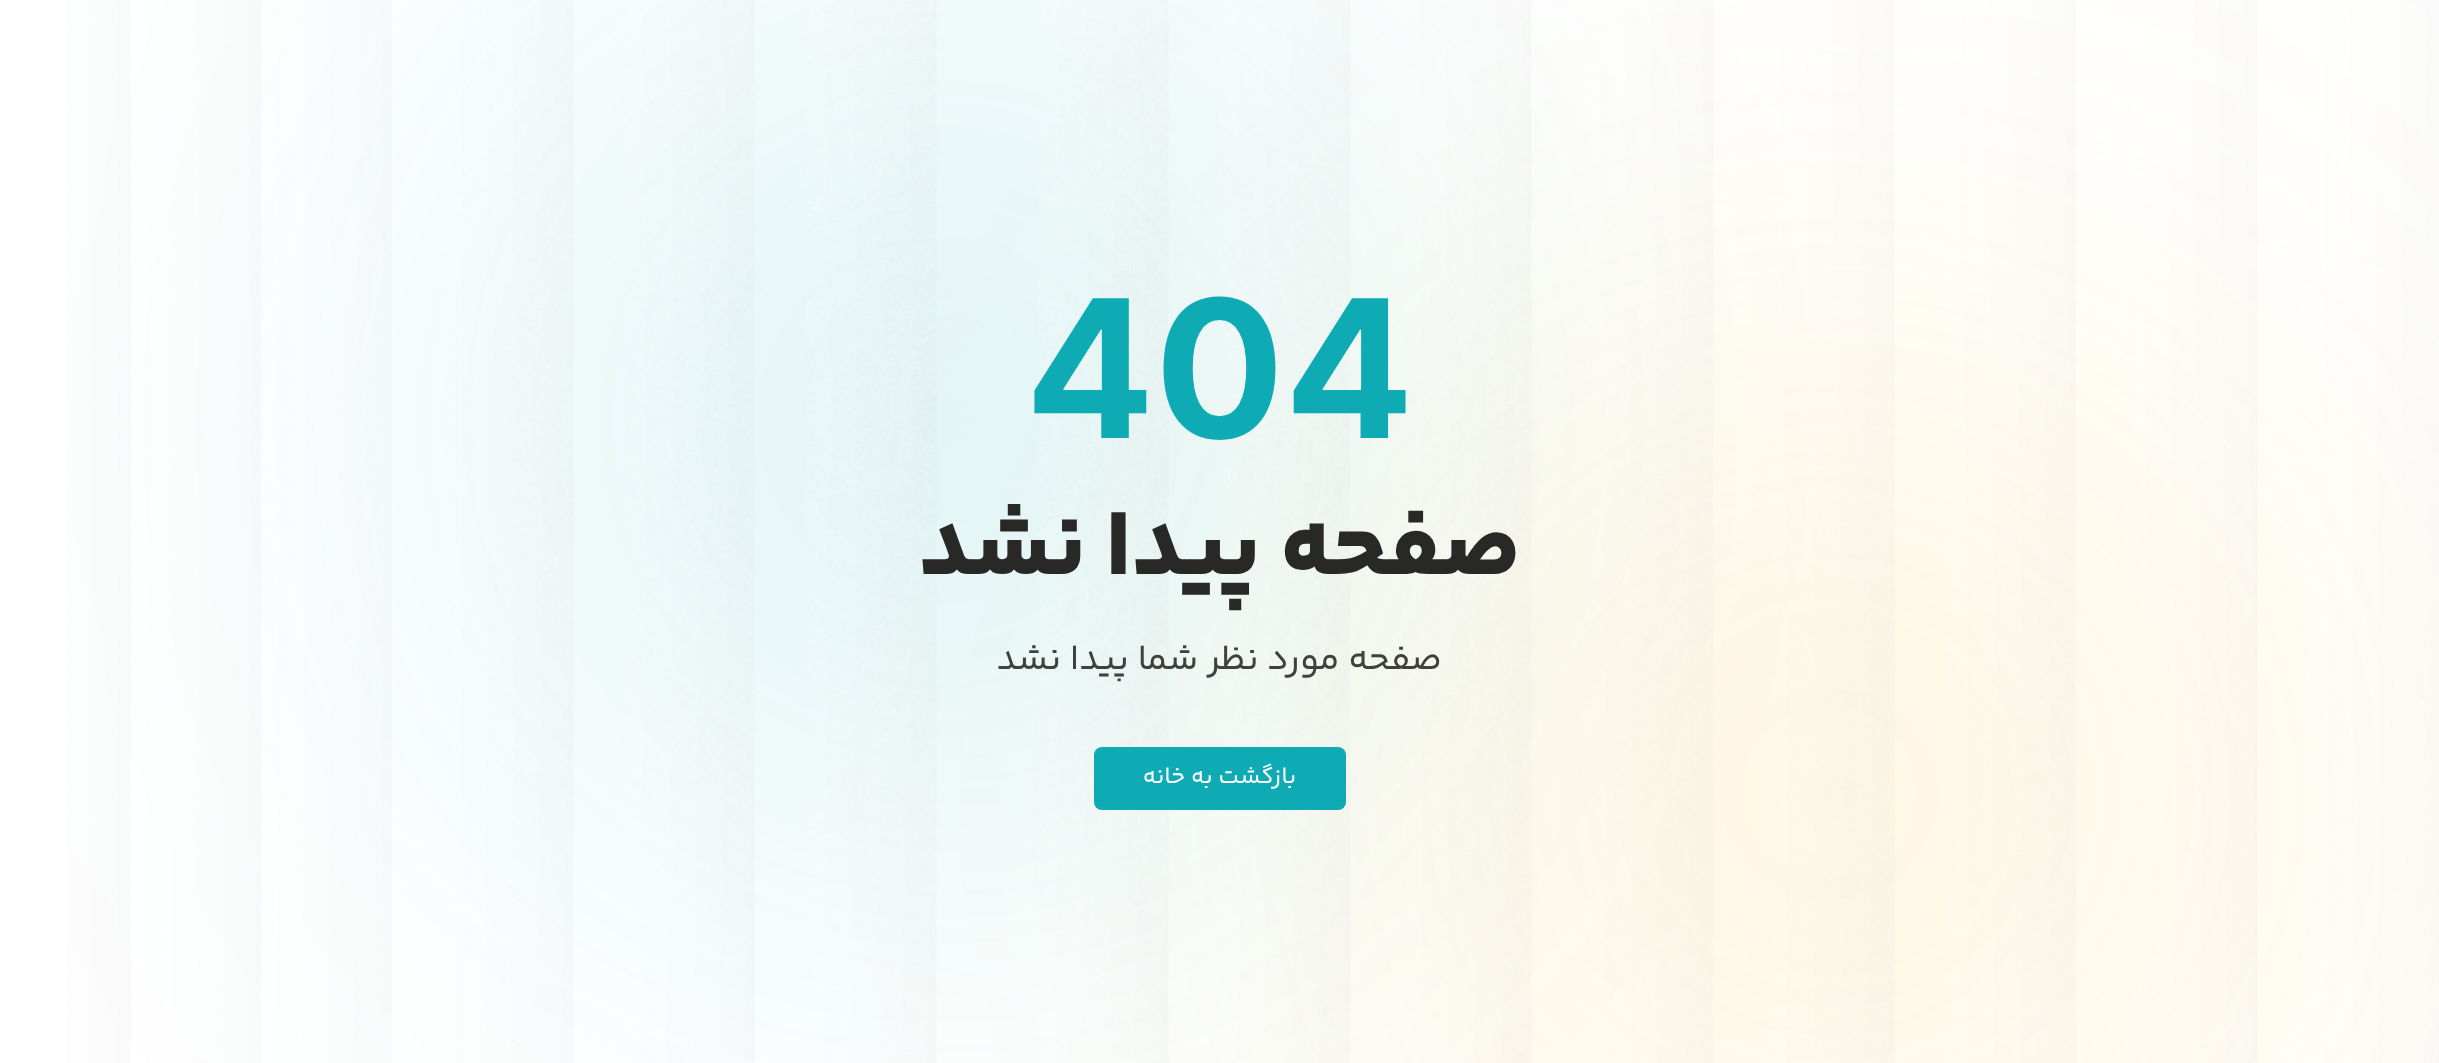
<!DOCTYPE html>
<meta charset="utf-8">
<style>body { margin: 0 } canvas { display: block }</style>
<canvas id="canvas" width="2439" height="1063"></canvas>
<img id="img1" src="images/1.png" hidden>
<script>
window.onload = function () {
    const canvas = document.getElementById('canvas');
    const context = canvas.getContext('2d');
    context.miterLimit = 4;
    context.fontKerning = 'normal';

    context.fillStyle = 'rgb(255, 255, 255)';
    context.fillRect(0, 0, 2439, 1063);
    context.drawImage(document.getElementById('img1'), 67, 0, 2372, 1063);
    context.fillStyle = 'rgb(15, 171, 181)';
    context.beginPath();
    context.roundRect(1094, 747, 252, 63, 8);
    context.fill();
    context.font = 'bold 192px Inter';
    context.fillText('404', 1025, 438);
    context.direction = 'rtl';
    context.font = '800 96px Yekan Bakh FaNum';
    context.fillStyle = 'rgb(40, 40, 38)';
    context.fillText('صفحه پیدا نشد', 1521, 574);
    context.font = '36px Yekan Bakh FaNum';
    context.fillStyle = 'rgb(64, 64, 61)';
    context.fillText('صفحه مورد نظر شما پیدا نشد', 1442, 669);
    context.font = '24px Yekan Bakh FaNum';
    context.fillStyle = 'rgb(255, 255, 255)';
    context.fillText('بازگشت به خانه', 1296, 783);
};
</script>
